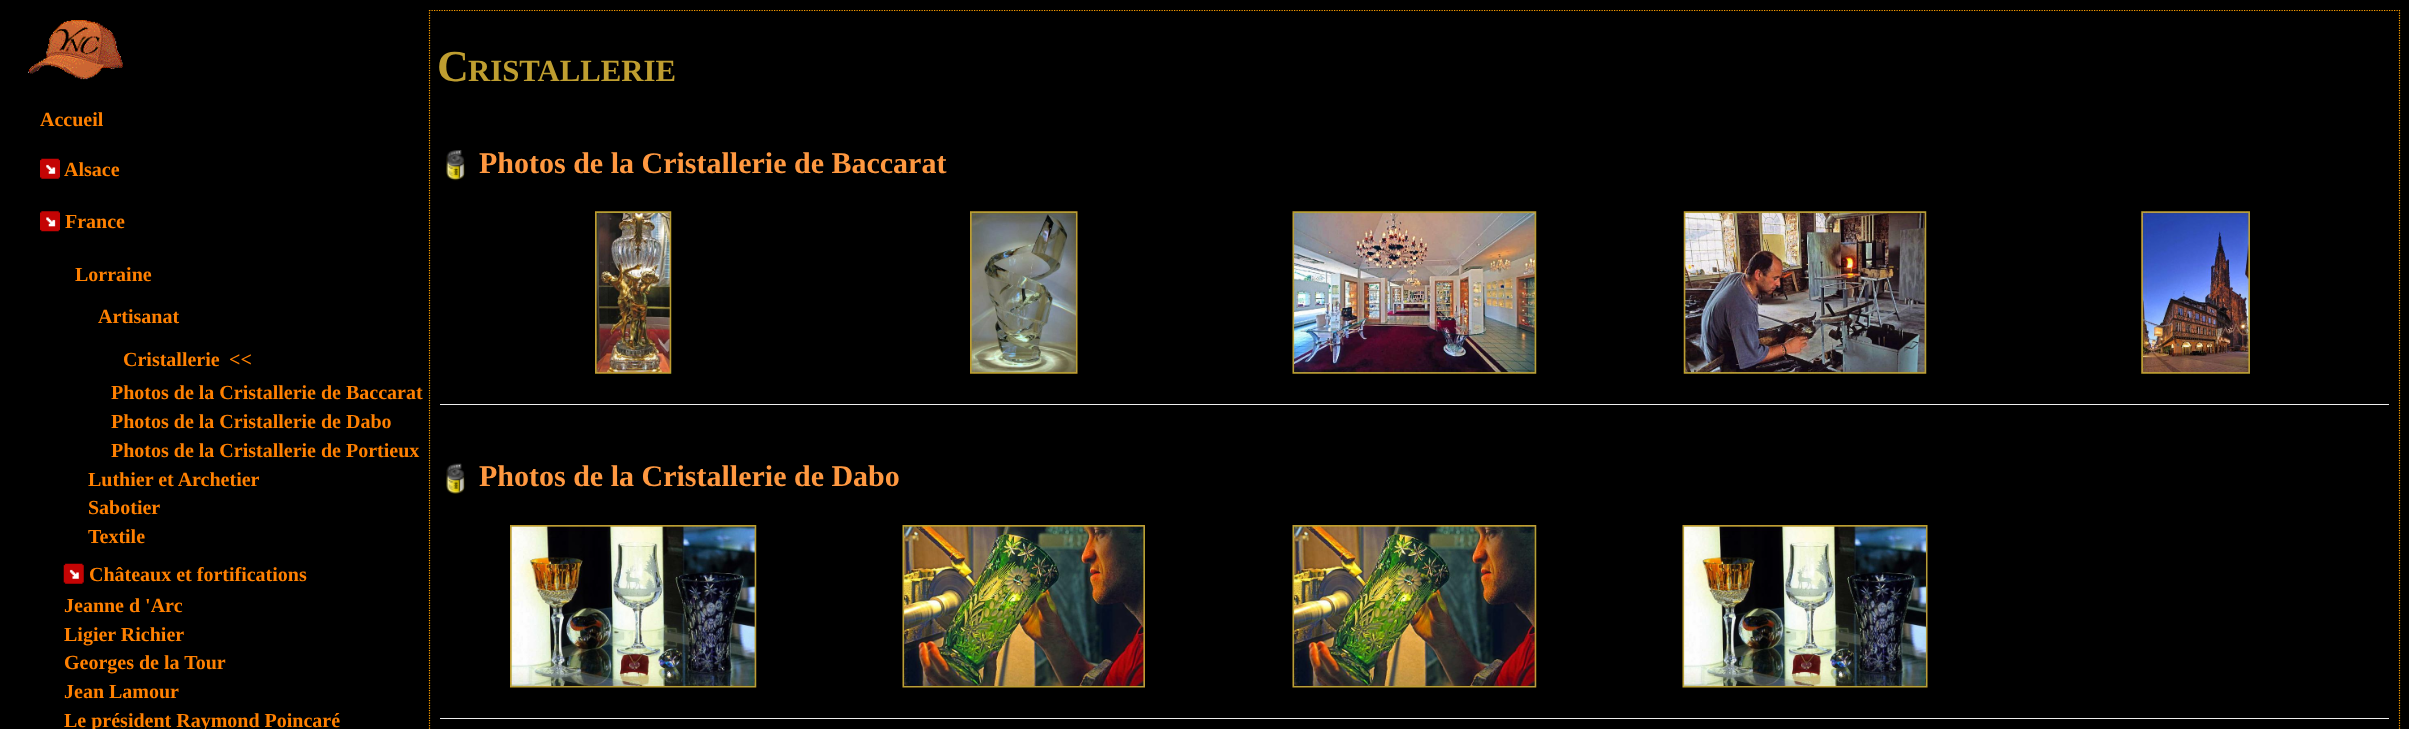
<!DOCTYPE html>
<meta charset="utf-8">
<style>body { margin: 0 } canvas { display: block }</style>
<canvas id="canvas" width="2409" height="729"></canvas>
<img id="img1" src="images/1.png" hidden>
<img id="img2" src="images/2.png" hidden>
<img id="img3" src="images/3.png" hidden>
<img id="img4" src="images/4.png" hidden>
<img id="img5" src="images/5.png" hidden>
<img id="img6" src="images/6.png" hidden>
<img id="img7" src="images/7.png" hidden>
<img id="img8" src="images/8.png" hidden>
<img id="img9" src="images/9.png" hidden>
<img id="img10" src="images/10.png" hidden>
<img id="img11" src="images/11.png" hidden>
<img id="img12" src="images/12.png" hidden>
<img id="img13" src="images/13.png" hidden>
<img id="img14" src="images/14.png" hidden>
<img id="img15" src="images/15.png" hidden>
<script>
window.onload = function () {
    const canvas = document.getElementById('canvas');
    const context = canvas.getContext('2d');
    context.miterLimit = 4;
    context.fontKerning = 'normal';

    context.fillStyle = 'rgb(0, 0, 0)';
    context.fillRect(0, 0, 2409, 729);
    context.drawImage(document.getElementById('img1'), 28, 20, 95, 60);
    context.drawImage(document.getElementById('img2'), 40, 158, 20, 21);
    context.drawImage(document.getElementById('img3'), 40, 211, 20, 21);
    context.drawImage(document.getElementById('img4'), 63, 563, 21, 21);
    context.beginPath();
    context.moveTo(429, 10.5);
    context.lineTo(2400, 10.5);
    context.strokeStyle = 'rgb(255, 160, 0)';
    context.lineWidth = 1.2;
    context.setLineDash([1.25, 1.25]);
    context.stroke();
    context.beginPath();
    context.moveTo(2399.5, 10);
    context.lineTo(2399.5, 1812.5);
    context.stroke();
    context.beginPath();
    context.moveTo(429.5, 10);
    context.lineTo(429.5, 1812.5);
    context.stroke();
    context.drawImage(document.getElementById('img5'), 446, 150, 19, 31);
    context.drawImage(document.getElementById('img6'), 595, 211, 77, 163);
    context.drawImage(document.getElementById('img7'), 970, 211, 108, 163);
    context.drawImage(document.getElementById('img8'), 1292, 211, 245, 163);
    context.drawImage(document.getElementById('img9'), 1683, 211, 244, 163);
    context.drawImage(document.getElementById('img10'), 2141, 211, 109, 163);
    context.fillStyle = 'rgb(238, 238, 238)';
    context.fillRect(440, 404, 1949, 1);
    context.drawImage(document.getElementById('img11'), 446, 463, 19, 31);
    context.drawImage(document.getElementById('img12'), 510, 525, 247, 163);
    context.drawImage(document.getElementById('img13'), 902, 525, 243, 163);
    context.drawImage(document.getElementById('img14'), 1292, 525, 245, 163);
    context.drawImage(document.getElementById('img15'), 1682, 525, 246, 163);
    context.fillRect(440, 718, 1949, 1);
    context.font = 'bold 20px Liberation Serif';
    context.fillStyle = 'rgb(255, 128, 0)';
    context.fillText('Accueil', 40, 126);
    context.fillText('Alsace', 64, 176);
    context.fillText('France', 65, 228);
    context.fillText('Lorraine', 75, 281);
    context.fillText('Artisanat', 98, 323);
    context.fillText('Cristallerie', 123, 366);
    context.fillText('<<', 229, 366);
    context.fillText('Photos de la Cristallerie de Baccarat', 111, 399);
    context.fillText('Photos de la Cristallerie de Dabo', 111, 428);
    context.fillText('Photos de la Cristallerie de Portieux', 111, 457);
    context.fillText('Luthier et Archetier', 88, 486);
    context.fillText('Sabotier', 88, 514);
    context.fillText('Textile', 88, 543);
    context.fillText('Châteaux et fortifications', 89, 581);
    context.fillText('Jeanne d \'Arc', 64, 612);
    context.fillText('Ligier Richier', 64, 641);
    context.fillText('Georges de la Tour', 64, 669);
    context.fillText('Jean Lamour', 64, 698);
    context.fillText('Le président Raymond Poincaré', 64, 727);
    context.font = 'bold 44px Liberation Serif';
    context.fillStyle = 'rgb(191, 158, 48)';
    context.fillText('C', 437, 81);
    context.font = 'bold 30.75px Liberation Serif';
    context.fillText('RISTALLERIE', 468, 81);
    context.font = 'bold 30px Liberation Serif';
    context.fillStyle = 'rgb(255, 152, 64)';
    context.fillText('Photos de la Cristallerie de Baccarat', 479, 173);
    context.fillText('Photos de la Cristallerie de Dabo', 479, 486);
};
</script>
